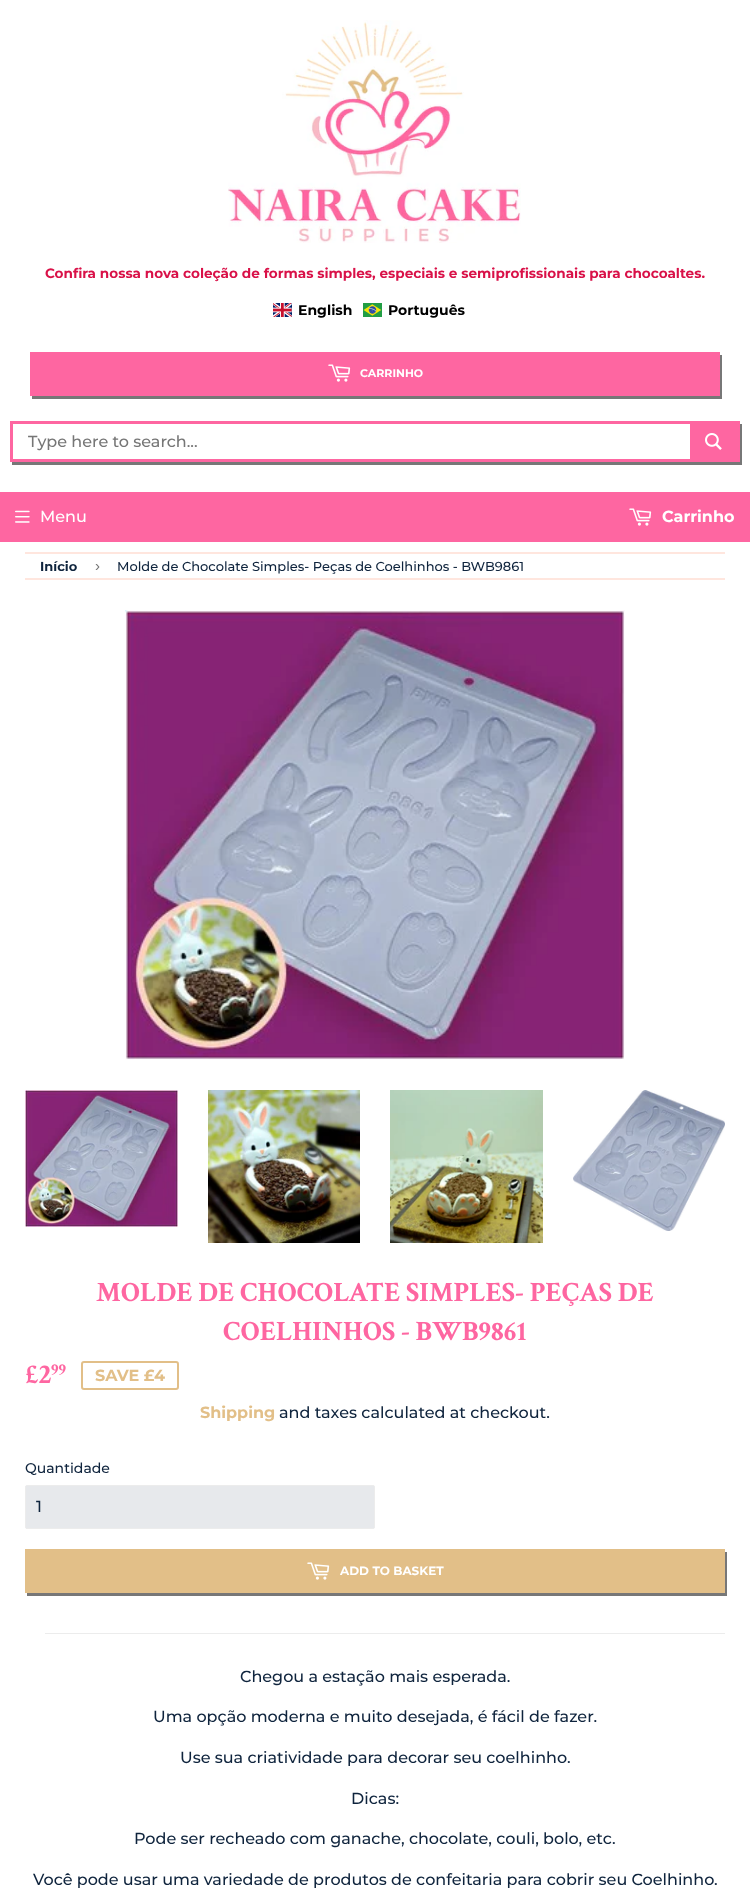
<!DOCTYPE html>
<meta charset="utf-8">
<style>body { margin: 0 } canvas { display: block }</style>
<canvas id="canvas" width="750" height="1904"></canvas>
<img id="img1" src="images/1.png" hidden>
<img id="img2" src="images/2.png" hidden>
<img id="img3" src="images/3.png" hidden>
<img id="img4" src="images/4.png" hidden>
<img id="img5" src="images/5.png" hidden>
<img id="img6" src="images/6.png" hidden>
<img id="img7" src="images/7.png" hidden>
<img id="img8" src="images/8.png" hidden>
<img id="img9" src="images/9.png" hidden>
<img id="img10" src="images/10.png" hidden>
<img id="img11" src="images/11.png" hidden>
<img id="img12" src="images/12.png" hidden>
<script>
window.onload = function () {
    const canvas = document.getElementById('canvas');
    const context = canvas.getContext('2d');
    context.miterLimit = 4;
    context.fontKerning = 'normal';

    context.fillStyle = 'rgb(255, 255, 255)';
    context.fillRect(0, 0, 750, 1904);
    context.drawImage(document.getElementById('img1'), 228, 20, 293, 223);
    context.drawImage(document.getElementById('img2'), 273, 303, 19, 14);
    context.drawImage(document.getElementById('img3'), 363, 303, 19, 14);
    context.fillStyle = 'rgb(119, 119, 119)';
    context.beginPath();
    context.moveTo(32, 396);
    context.lineTo(32, 399);
    context.lineTo(722, 399);
    context.lineTo(722, 355);
    context.lineTo(720, 355);
    context.lineTo(720, 396);
    context.closePath();
    context.fill();
    context.fillStyle = 'rgb(254, 102, 161)';
    context.fillRect(30, 352, 690, 44);
    context.drawImage(document.getElementById('img4'), 328, 364, 23, 18);
    context.fillStyle = 'rgb(119, 119, 119)';
    context.beginPath();
    context.moveTo(12, 462);
    context.lineTo(12, 465);
    context.lineTo(742, 465);
    context.lineTo(742, 424);
    context.lineTo(740, 424);
    context.lineTo(740, 462);
    context.closePath();
    context.fill();
    context.strokeStyle = 'rgb(254, 102, 161)';
    context.lineWidth = 3;
    context.strokeRect(11.5, 422.5, 727, 38);
    context.fillStyle = 'rgb(254, 102, 161)';
    context.fillRect(690, 424, 47, 35);
    context.drawImage(document.getElementById('img5'), 705, 433, 17, 17);
    context.fillRect(0, 492, 750, 50);
    context.drawImage(document.getElementById('img6'), 15, 510, 15, 13);
    context.drawImage(document.getElementById('img4'), 629, 508, 23, 18);
    context.fillStyle = 'rgb(255, 230, 222)';
    context.fillRect(25, 552, 700, 2);
    context.fillRect(25, 578, 700, 2);
    context.drawImage(document.getElementById('img7'), 125, 610, 500, 450);
    context.drawImage(document.getElementById('img8'), 25, 1090, 153, 137);
    context.drawImage(document.getElementById('img9'), 208, 1090, 152, 153);
    context.drawImage(document.getElementById('img10'), 390, 1090, 153, 153);
    context.drawImage(document.getElementById('img11'), 573, 1090, 152, 141);
    context.beginPath();
    context.roundRect(82, 1362, 96, 27, 2);
    context.strokeStyle = 'rgb(226, 191, 136)';
    context.lineWidth = 2;
    context.stroke();
    context.fillStyle = 'rgb(231, 233, 236)';
    context.beginPath();
    context.roundRect(25.5, 1485.5, 349, 43, 1.5);
    context.fill();
    context.strokeStyle = 'rgb(236, 236, 236)';
    context.lineWidth = 1;
    context.stroke();
    context.fillStyle = 'rgb(119, 119, 119)';
    context.beginPath();
    context.moveTo(27, 1593);
    context.lineTo(27, 1596);
    context.lineTo(727, 1596);
    context.lineTo(727, 1552);
    context.lineTo(725, 1552);
    context.lineTo(725, 1593);
    context.closePath();
    context.fill();
    context.fillStyle = 'rgb(226, 191, 136)';
    context.fillRect(25, 1549, 700, 44);
    context.drawImage(document.getElementById('img12'), 307, 1562, 23, 18);
    context.fillStyle = 'rgb(236, 236, 236)';
    context.fillRect(45, 1633, 680, 1);
    context.font = 'bold 13.6px Montserrat';
    context.fillStyle = 'rgb(217, 17, 72)';
    context.fillText('Confira nossa nova coleção de formas simples, especiais e semiprofissionais para chocoaltes.', 45, 278);
    context.font = 'bold 14px Montserrat';
    context.fillStyle = 'rgb(0, 0, 0)';
    context.fillText('English', 298, 315);
    context.fillText('Português', 388, 315);
    context.font = 'bold 11px Montserrat';
    context.fillStyle = 'rgb(255, 255, 255)';
    context.fillText('CARRINHO', 360, 377);
    context.font = '500 16px Montserrat';
    context.fillStyle = 'rgb(118, 118, 118)';
    context.fillText('Type here to search...', 28, 447);
    context.fillStyle = 'rgb(255, 255, 255)';
    context.fillText('Menu', 40, 522);
    context.font = 'bold 16px Montserrat';
    context.fillText('Carrinho', 662, 522);
    context.font = 'bold 13px Montserrat';
    context.fillStyle = 'rgb(15, 36, 61)';
    context.fillText('Início', 40, 571);
    context.font = '15px Liberation Sans';
    context.fillStyle = 'rgb(118, 118, 118)';
    context.fillText('›', 95, 571);
    context.font = '500 13px Montserrat';
    context.fillStyle = 'rgb(15, 36, 61)';
    context.fillText('Molde de Chocolate Simples- Peças de Coelhinhos - BWB9861', 117, 571);
    context.font = 'bold 28px Crimson Text';
    context.fillStyle = 'rgb(254, 102, 161)';
    context.fillText('MOLDE DE CHOCOLATE SIMPLES- PEÇAS DE', 96, 1301);
    context.fillText('COELHINHOS - BWB9861', 223, 1340);
    context.fillText('£2', 25, 1383);
    context.font = 'bold 17px Crimson Text';
    context.fillText('99', 51, 1375);
    context.font = 'bold 16px Montserrat';
    context.fillStyle = 'rgb(226, 191, 136)';
    context.fillText('SAVE £4', 95, 1381);
    context.fillText('Shipping', 200, 1418);
    context.font = '500 16px Montserrat';
    context.fillStyle = 'rgb(15, 36, 61)';
    context.fillText('and taxes calculated at checkout.', 279, 1418);
    context.font = '500 14px Montserrat';
    context.fillText('Quantidade', 25, 1473);
    context.font = '500 16px Montserrat';
    context.fillText('1', 36, 1512);
    context.font = 'bold 12px Montserrat';
    context.fillStyle = 'rgb(255, 255, 255)';
    context.fillText('ADD TO BASKET', 340, 1575);
    context.font = '500 16px Montserrat';
    context.fillStyle = 'rgb(15, 36, 61)';
    context.fillText('Chegou a estação mais esperada.', 240, 1682);
    context.fillText('Uma opção moderna e muito desejada, é fácil de fazer.', 153, 1722);
    context.fillText('Use sua criatividade para decorar seu coelhinho.', 180, 1763);
    context.fillText('Dicas:', 351, 1804);
    context.fillText('Pode ser recheado com ganache, chocolate, couli, bolo, etc.', 134, 1844);
    context.fillText('Você pode usar uma variedade de produtos de confeitaria para cobrir seu Coelhinho.', 33, 1885);
};
</script>
